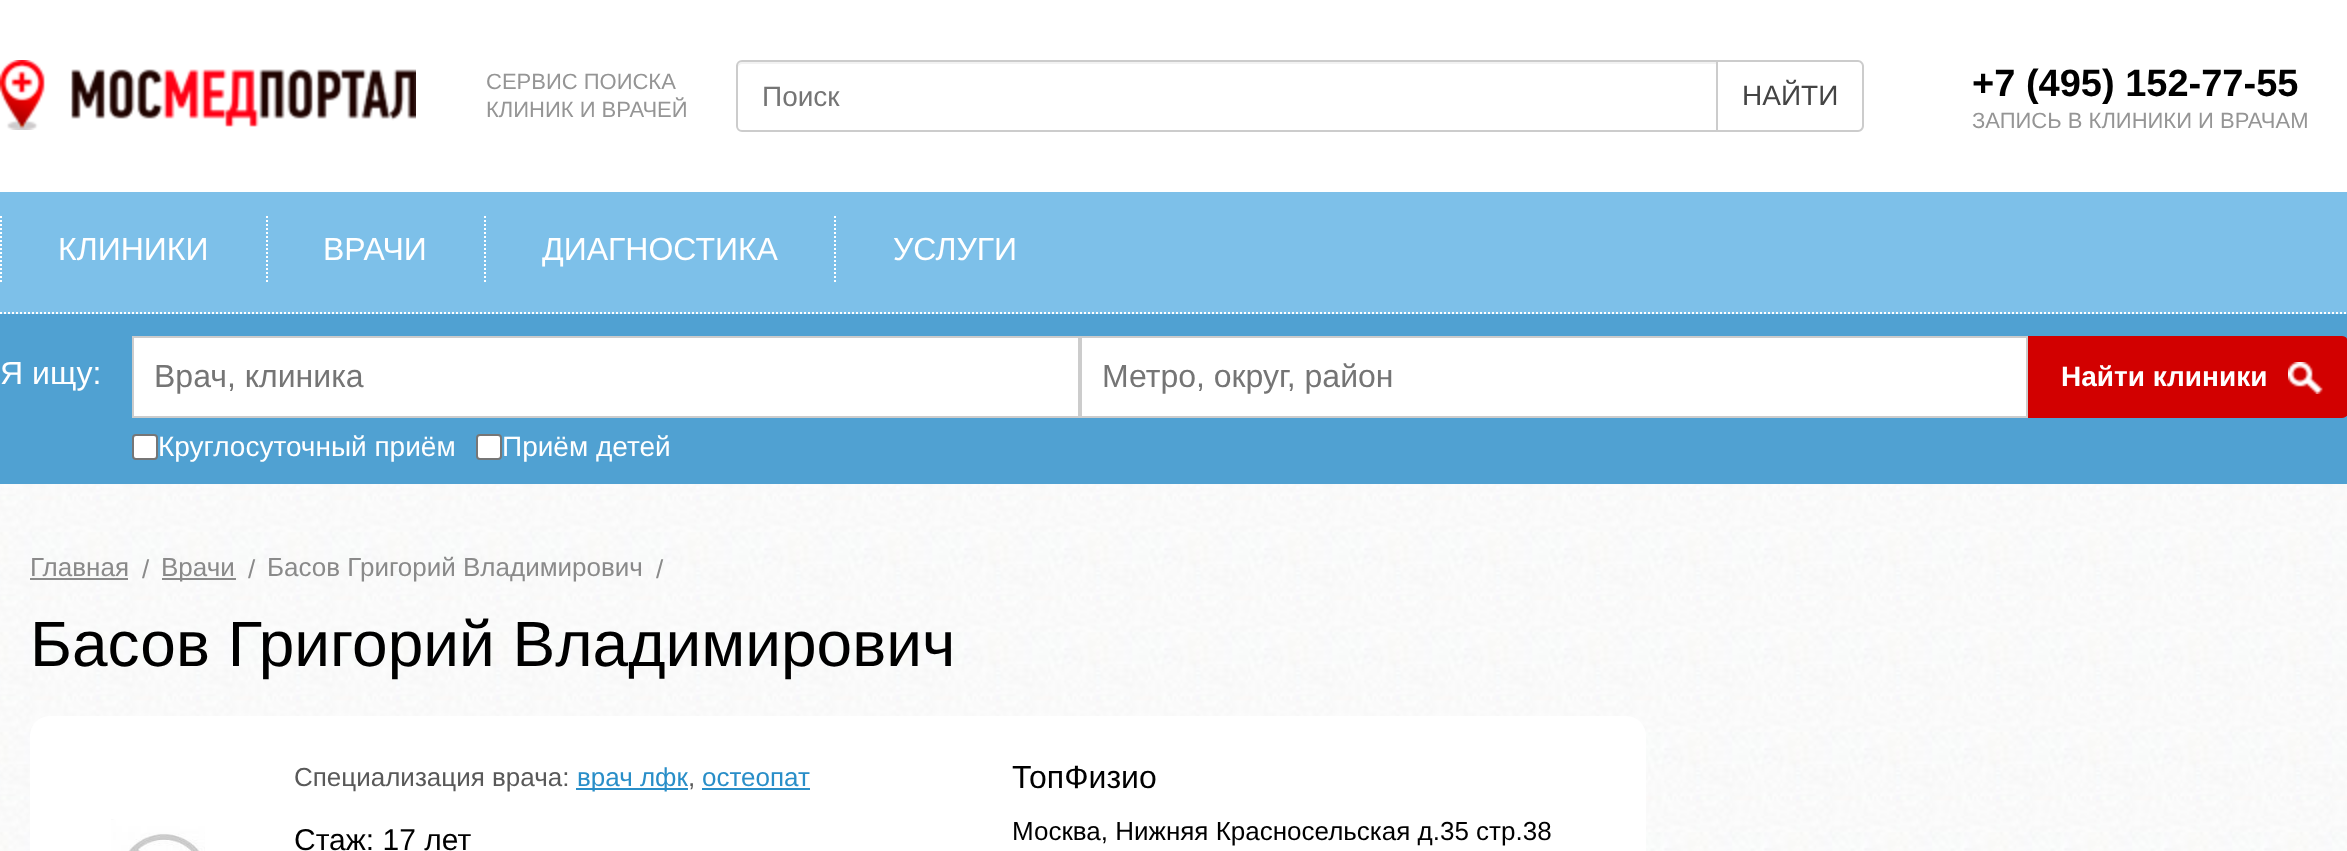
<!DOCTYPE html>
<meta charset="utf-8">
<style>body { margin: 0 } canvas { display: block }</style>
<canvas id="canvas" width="2347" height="851"></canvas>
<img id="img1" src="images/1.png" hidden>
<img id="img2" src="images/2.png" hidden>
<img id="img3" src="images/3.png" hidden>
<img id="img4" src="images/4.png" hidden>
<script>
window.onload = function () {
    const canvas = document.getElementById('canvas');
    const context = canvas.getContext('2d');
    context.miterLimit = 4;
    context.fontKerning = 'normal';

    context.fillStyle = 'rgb(255, 255, 255)';
    context.fillRect(0, 0, 2347, 851);
    context.drawImage(document.getElementById('img1'), 0, 484, 2347, 367);
    context.drawImage(document.getElementById('img2'), 0, 60, 416, 70);
    context.fillStyle = 'rgb(242, 242, 242)';
    context.beginPath();
    context.moveTo(742, 64);
    context.lineTo(1716, 64);
    context.lineTo(1716, 62);
    context.lineTo(742, 62);
    context.bezierCurveTo(740, 62, 738, 64, 738, 66);
    context.lineTo(738, 68);
    context.bezierCurveTo(738, 66, 740, 64, 742, 64);
    context.closePath();
    context.fill();
    context.beginPath();
    context.roundRect(737, 61, 980, 70, [5, 0, 0, 5]);
    context.strokeStyle = 'rgb(204, 204, 204)';
    context.lineWidth = 2;
    context.stroke();
    context.fillStyle = 'rgb(204, 204, 204)';
    context.beginPath();
    context.moveTo(1718, 60);
    context.lineTo(1858, 60);
    context.bezierCurveTo(1861, 60, 1864, 63, 1864, 66);
    context.lineTo(1864, 126);
    context.bezierCurveTo(1864, 129, 1861, 132, 1858, 132);
    context.lineTo(1718, 132);
    context.closePath();
    context.moveTo(1718, 62);
    context.lineTo(1858, 62);
    context.bezierCurveTo(1860, 62, 1862, 64, 1862, 66);
    context.lineTo(1862, 126);
    context.bezierCurveTo(1862, 128, 1860, 130, 1858, 130);
    context.lineTo(1718, 130);
    context.closePath();
    context.fill('evenodd');
    context.fillStyle = 'rgb(125, 192, 233)';
    context.fillRect(0, 192, 2347, 122);
    context.beginPath();
    context.moveTo(1, 216);
    context.lineTo(1, 282);
    context.strokeStyle = 'rgb(255, 255, 255)';
    context.setLineDash([2, 2]);
    context.stroke();
    context.beginPath();
    context.moveTo(267, 216);
    context.lineTo(267, 282);
    context.stroke();
    context.beginPath();
    context.moveTo(485, 216);
    context.lineTo(485, 282);
    context.stroke();
    context.beginPath();
    context.moveTo(835, 216);
    context.lineTo(835, 282);
    context.stroke();
    context.beginPath();
    context.moveTo(0, 313);
    context.lineTo(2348, 313);
    context.stroke();
    context.fillStyle = 'rgb(80, 161, 210)';
    context.fillRect(0, 314, 2347, 170);
    context.fillStyle = 'rgb(255, 255, 255)';
    context.beginPath();
    context.rect(133, 337, 946, 80);
    context.fill();
    context.strokeStyle = 'rgb(204, 204, 204)';
    context.setLineDash([]);
    context.stroke();
    context.beginPath();
    context.rect(1081, 337, 946, 80);
    context.fill();
    context.stroke();
    context.fillStyle = 'rgb(210, 0, 0)';
    context.beginPath();
    context.moveTo(2028, 336);
    context.lineTo(2342, 336);
    context.bezierCurveTo(2345.5, 336, 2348, 338.5, 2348, 342);
    context.lineTo(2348, 412);
    context.bezierCurveTo(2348, 415.5, 2345.5, 418, 2342, 418);
    context.lineTo(2028, 418);
    context.closePath();
    context.fill();
    context.drawImage(document.getElementById('img3'), 2288, 362, 35, 32);
    context.fillStyle = 'rgb(255, 255, 255)';
    context.beginPath();
    context.roundRect(133, 435, 24, 24, 3);
    context.fill();
    context.strokeStyle = 'rgb(118, 118, 118)';
    context.stroke();
    context.beginPath();
    context.roundRect(477, 435, 24, 24, 3);
    context.fill();
    context.stroke();
    context.fillStyle = 'rgb(138, 138, 138)';
    context.fillRect(30, 578, 98, 2);
    context.fillRect(162, 578, 74, 2);
    context.fillStyle = 'rgb(255, 255, 255)';
    context.beginPath();
    context.roundRect(30, 716, 1616, 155, 20);
    context.fill();
    context.drawImage(document.getElementById('img4'), 111, 819, 94, 32);
    context.fillStyle = 'rgb(41, 142, 200)';
    context.fillRect(576, 788, 112, 2);
    context.fillRect(702, 788, 108, 2);
    context.font = '22px Liberation Sans';
    context.fillStyle = 'rgb(149, 149, 149)';
    context.fillText('СЕРВИС ПОИСКА', 486, 89);
    context.fillText('КЛИНИК И ВРАЧЕЙ', 486, 117);
    context.font = '28px Liberation Sans';
    context.fillStyle = 'rgb(117, 117, 117)';
    context.fillText('Поиск', 762, 106);
    context.fillStyle = 'rgb(68, 68, 68)';
    context.fillText('НАЙТИ', 1742, 105);
    context.font = 'bold 38px Liberation Sans';
    context.fillStyle = 'rgb(0, 0, 0)';
    context.fillText('+7 (495) 152-77-55', 1972, 96);
    context.font = '22px Liberation Sans';
    context.fillStyle = 'rgb(149, 149, 149)';
    context.fillText('ЗАПИСЬ В КЛИНИКИ И ВРАЧАМ', 1972, 128);
    context.font = '32px Liberation Sans';
    context.fillStyle = 'rgb(255, 255, 255)';
    context.fillText('КЛИНИКИ', 58, 260);
    context.fillText('ВРАЧИ', 323, 260);
    context.fillText('ДИАГНОСТИКА', 542, 260);
    context.fillText('УСЛУГИ', 893, 260);
    context.fillText('Я ищу:', 0, 384);
    context.fillStyle = 'rgb(117, 117, 117)';
    context.fillText('Врач, клиника', 154, 387);
    context.fillText('Метро, округ, район', 1102, 387);
    context.font = 'bold 28px Liberation Sans';
    context.fillStyle = 'rgb(255, 255, 255)';
    context.fillText('Найти клиники', 2061, 386);
    context.font = '28px Liberation Sans';
    context.fillText('Круглосуточный приём', 158, 456);
    context.fillText('Приём детей', 502, 456);
    context.font = '26px Liberation Sans';
    context.fillStyle = 'rgb(138, 138, 138)';
    context.fillText('Главная', 30, 576);
    context.fillText('/', 142, 578);
    context.fillText('Врачи', 161, 576);
    context.fillText('/', 248, 578);
    context.fillText('Басов Григорий Владимирович', 267, 576);
    context.fillText('/', 656, 578);
    context.font = '64px Liberation Sans';
    context.fillStyle = 'rgb(0, 0, 0)';
    context.fillText('Басов Григорий Владимирович', 30, 666);
    context.font = '26px Liberation Sans';
    context.fillStyle = 'rgb(89, 89, 89)';
    context.fillText('Специализация врача:', 294, 786);
    context.fillStyle = 'rgb(41, 142, 200)';
    context.fillText('врач лфк', 577, 786);
    context.fillStyle = 'rgb(89, 89, 89)';
    context.fillText(',', 688, 786);
    context.fillStyle = 'rgb(41, 142, 200)';
    context.fillText('остеопат', 702, 786);
    context.font = '30px Liberation Sans';
    context.fillStyle = 'rgb(0, 0, 0)';
    context.fillText('Стаж: 17 лет', 294, 850);
    context.font = '32px Liberation Sans';
    context.fillText('ТопФизио', 1012, 788);
    context.font = '26px Liberation Sans';
    context.fillText('Москва, Нижняя Красносельская д.35 стр.38', 1012, 840);
};
</script>
